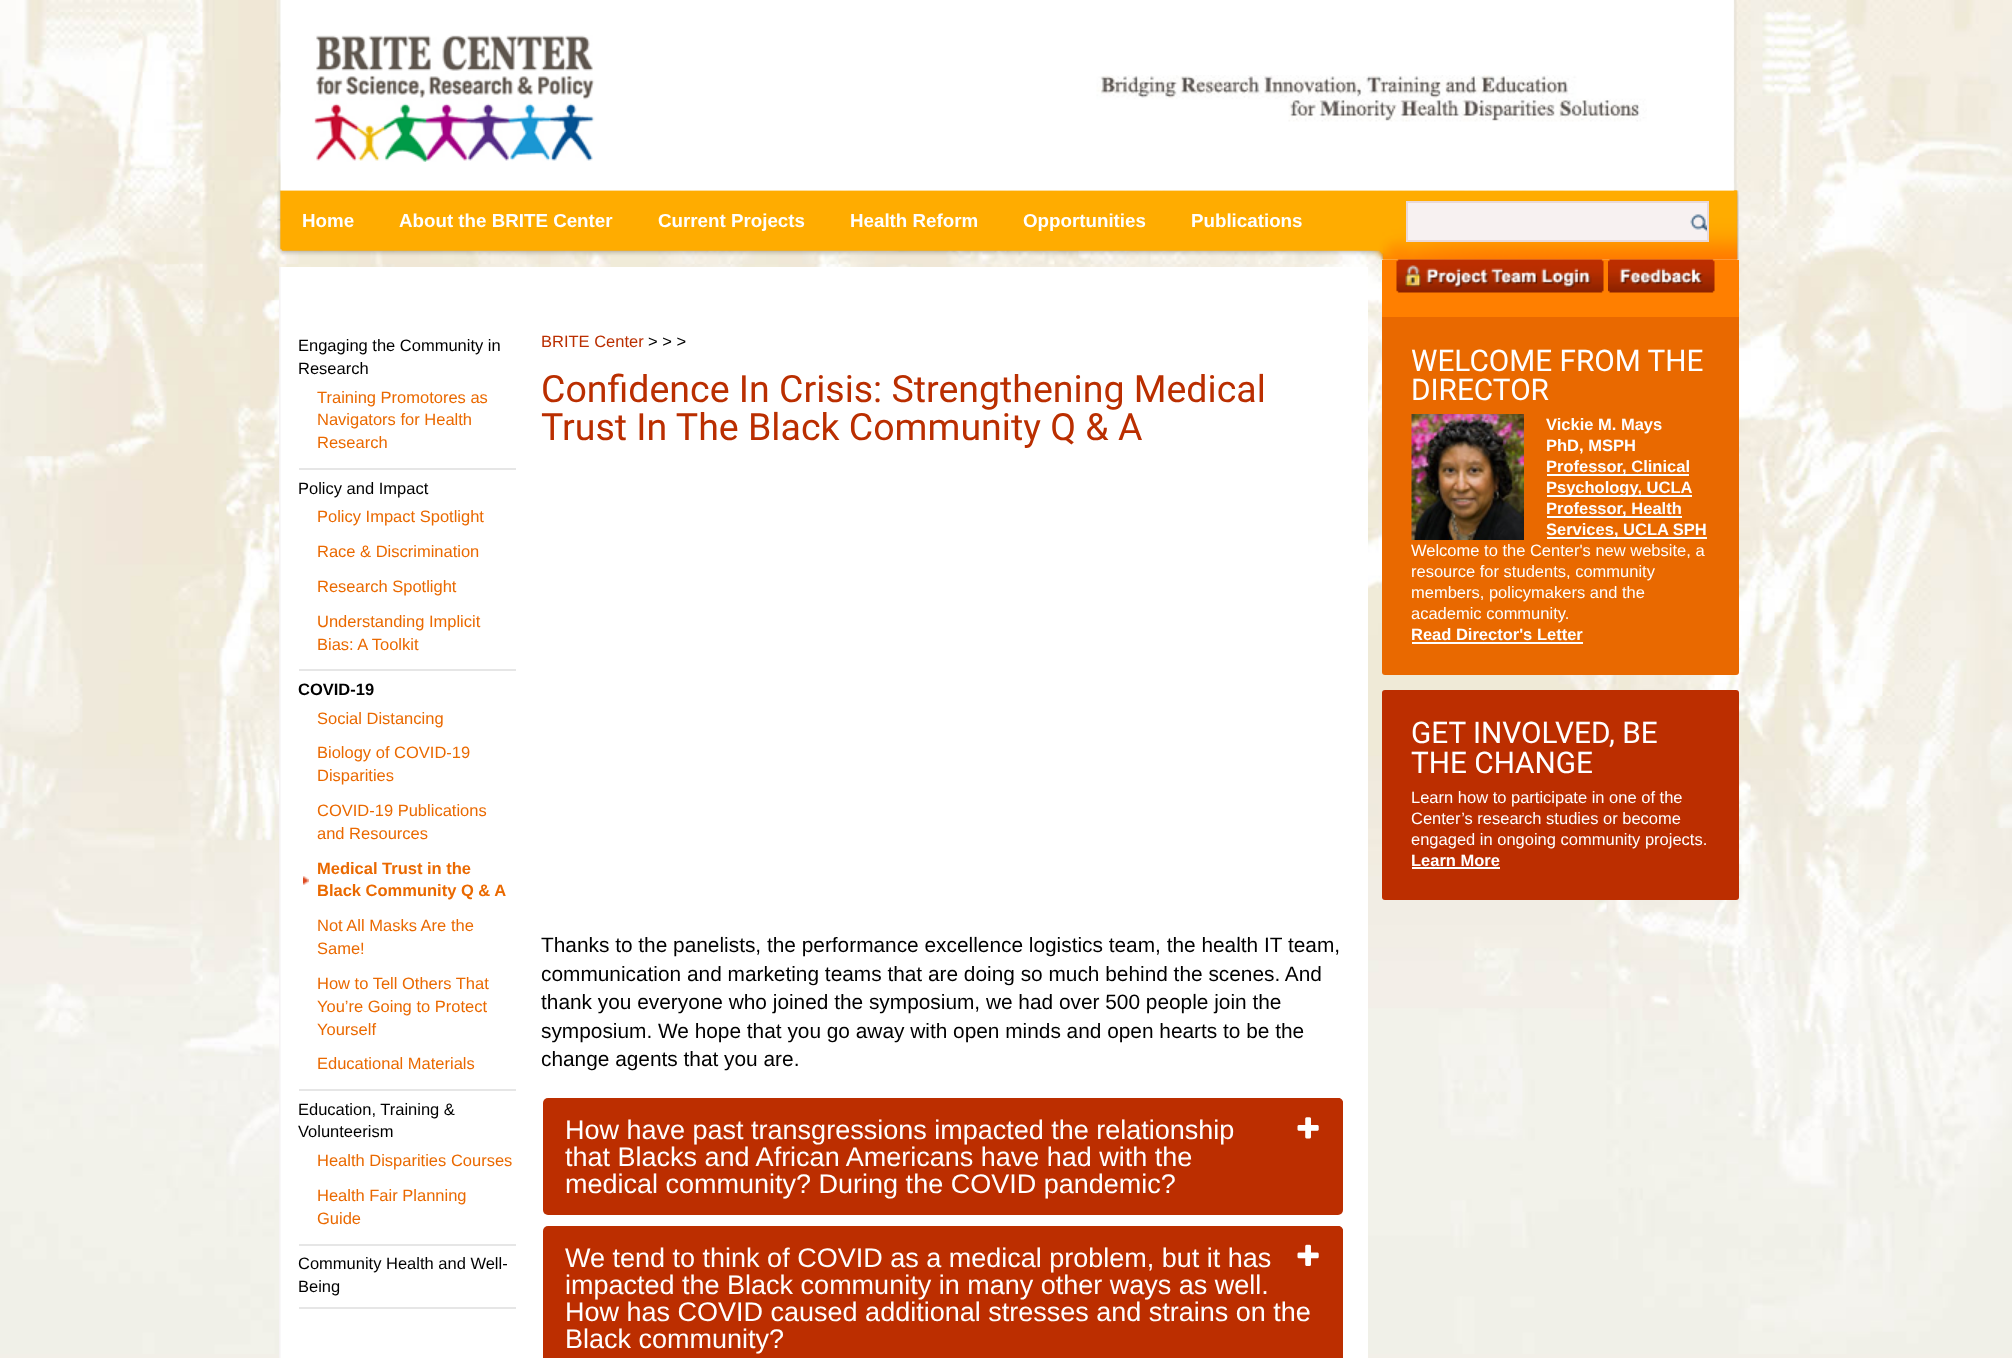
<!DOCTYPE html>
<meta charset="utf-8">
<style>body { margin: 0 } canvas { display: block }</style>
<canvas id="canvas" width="2012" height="1358"></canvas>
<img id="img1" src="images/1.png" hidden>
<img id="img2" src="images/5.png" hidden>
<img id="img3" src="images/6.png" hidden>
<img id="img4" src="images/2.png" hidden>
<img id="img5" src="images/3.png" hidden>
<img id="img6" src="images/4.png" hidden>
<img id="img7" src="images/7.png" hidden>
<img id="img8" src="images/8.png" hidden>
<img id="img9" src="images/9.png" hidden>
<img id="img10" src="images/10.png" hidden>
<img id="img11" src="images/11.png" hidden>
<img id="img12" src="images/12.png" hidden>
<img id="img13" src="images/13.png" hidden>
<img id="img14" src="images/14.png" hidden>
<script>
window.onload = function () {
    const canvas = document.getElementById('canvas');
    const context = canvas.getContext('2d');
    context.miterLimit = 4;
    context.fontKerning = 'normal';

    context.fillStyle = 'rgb(242, 239, 232)';
    context.fillRect(0, 0, 2012, 1358);
    context.drawImage(document.getElementById('img1'), 0, 0, 2012, 1354);
    context.drawImage(document.getElementById('img2'), 277, 190, 1462, 70);
    context.drawImage(document.getElementById('img3'), 277, 190, 1462, 70);
    context.drawImage(document.getElementById('img4'), 278, 0, 1459, 191);
    context.drawImage(document.getElementById('img5'), 314, 35, 281, 127);
    context.drawImage(document.getElementById('img6'), 1096, 75, 551, 47);
    context.fillStyle = 'rgb(247, 241, 241)';
    context.beginPath();
    context.rect(1407, 202, 301, 39);
    context.fill();
    context.strokeStyle = 'rgb(233, 217, 217)';
    context.lineWidth = 2;
    context.stroke();
    context.drawImage(document.getElementById('img7'), 1690, 214, 17, 18);
    context.drawImage(document.getElementById('img8'), 279, 267, 1089, 1091);
    context.fillStyle = 'rgb(230, 230, 230)';
    context.fillRect(299, 468, 217, 2);
    context.fillRect(299, 669, 217, 2);
    context.fillRect(299, 1089, 217, 2);
    context.drawImage(document.getElementById('img9'), 303, 876, 6, 9);
    context.fillRect(299, 1244, 217, 2);
    context.fillRect(299, 1307, 217, 2);
    context.fillStyle = 'rgb(188, 46, 0)';
    context.beginPath();
    context.roundRect(543, 1098, 800, 117, 5);
    context.fill();
    context.beginPath();
    context.roundRect(1275, 1098, 68, 63, [0, 5, 0, 0]);
    context.fill();
    context.drawImage(document.getElementById('img10'), 1297, 1117, 22, 22);
    context.beginPath();
    context.roundRect(543, 1226, 800, 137, 5);
    context.fill();
    context.beginPath();
    context.roundRect(1275, 1226, 68, 63, [0, 5, 0, 0]);
    context.fill();
    context.drawImage(document.getElementById('img11'), 1297, 1244, 22, 22);
    context.fillStyle = 'rgb(255, 127, 0)';
    context.fillRect(1382, 260, 357, 57);
    context.drawImage(document.getElementById('img12'), 1396, 259, 208, 34);
    context.drawImage(document.getElementById('img13'), 1608, 259, 107, 34);
    context.fillStyle = 'rgb(233, 105, 0)';
    context.beginPath();
    context.roundRect(1382, 317, 357, 358, [0, 0, 3, 3]);
    context.fill();
    context.drawImage(document.getElementById('img14'), 1411, 414, 113, 126);
    context.fillStyle = 'rgb(255, 255, 255)';
    context.fillRect(1547, 474, 142, 2);
    context.fillRect(1547, 495, 145, 2);
    context.fillRect(1547, 516, 135, 2);
    context.fillRect(1547, 537, 160, 2);
    context.fillRect(1412, 642, 171, 2);
    context.fillStyle = 'rgb(188, 46, 0)';
    context.beginPath();
    context.roundRect(1382, 690, 357, 210, 3);
    context.fill();
    context.fillStyle = 'rgb(255, 255, 255)';
    context.fillRect(1412, 867, 88, 2);
    context.font = 'bold 18.75px Liberation Sans';
    context.fillText('Home', 302, 227);
    context.fillText('About the BRITE Center', 399, 227);
    context.fillText('Current Projects', 658, 227);
    context.fillText('Health Reform', 850, 227);
    context.fillText('Opportunities', 1023, 227);
    context.fillText('Publications', 1191, 227);
    context.font = '16.5px Liberation Sans';
    context.fillStyle = 'rgb(0, 0, 0)';
    context.fillText('Engaging the Community in', 298, 351);
    context.fillText('Research', 298, 374);
    context.fillStyle = 'rgb(234, 105, 0)';
    context.fillText('Training Promotores as', 317, 403);
    context.fillText('Navigators for Health', 317, 425);
    context.fillText('Research', 317, 448);
    context.fillStyle = 'rgb(0, 0, 0)';
    context.fillText('Policy and Impact', 298, 494);
    context.fillStyle = 'rgb(234, 105, 0)';
    context.fillText('Policy Impact Spotlight', 317, 522);
    context.fillText('Race & Discrimination', 317, 557);
    context.fillText('Research Spotlight', 317, 592);
    context.fillText('Understanding Implicit', 317, 627);
    context.fillText('Bias: A Toolkit', 317, 650);
    context.font = 'bold 16.5px Liberation Sans';
    context.fillStyle = 'rgb(0, 0, 0)';
    context.fillText('COVID-19', 298, 695);
    context.font = '16.5px Liberation Sans';
    context.fillStyle = 'rgb(234, 105, 0)';
    context.fillText('Social Distancing', 317, 724);
    context.fillText('Biology of COVID-19', 317, 758);
    context.fillText('Disparities', 317, 781);
    context.fillText('COVID-19 Publications', 317, 816);
    context.fillText('and Resources', 317, 839);
    context.font = 'bold 16.5px Liberation Sans';
    context.fillText('Medical Trust in the', 317, 874);
    context.fillText('Black Community Q & A', 317, 896);
    context.font = '16.5px Liberation Sans';
    context.fillText('Not All Masks Are the', 317, 931);
    context.fillText('Same!', 317, 954);
    context.fillText('How to Tell Others That', 317, 989);
    context.fillText('You’re Going to Protect', 317, 1012);
    context.fillText('Yourself', 317, 1035);
    context.fillText('Educational Materials', 317, 1069);
    context.fillStyle = 'rgb(0, 0, 0)';
    context.fillText('Education, Training &', 298, 1115);
    context.fillText('Volunteerism', 298, 1137);
    context.fillStyle = 'rgb(234, 105, 0)';
    context.fillText('Health Disparities Courses', 317, 1166);
    context.fillText('Health Fair Planning', 317, 1201);
    context.fillText('Guide', 317, 1224);
    context.fillStyle = 'rgb(0, 0, 0)';
    context.fillText('Community Health and Well-', 298, 1269);
    context.fillText('Being', 298, 1292);
    context.fillStyle = 'rgb(186, 46, 0)';
    context.fillText('BRITE Center', 541, 347);
    context.fillStyle = 'rgb(0, 0, 0)';
    context.fillText('> > >', 648, 347);
    context.font = '37.5px Roboto';
    context.fillStyle = 'rgb(186, 46, 0)';
    context.fillText('Confidence In Crisis: Strengthening Medical', 541, 402);
    context.fillText('Trust In The Black Community Q & A', 541, 440);
    context.font = '20.85px Liberation Sans';
    context.fillStyle = 'rgb(0, 0, 0)';
    context.fillText('Thanks to the panelists, the performance excellence logistics team, the health IT team,', 541, 952);
    context.fillText('communication and marketing teams that are doing so much behind the scenes. And', 541, 981);
    context.fillText('thank you everyone who joined the symposium, we had over 500 people join the', 541, 1009);
    context.fillText('symposium. We hope that you go away with open minds and open hearts to be the', 541, 1038);
    context.fillText('change agents that you are.', 541, 1066);
    context.font = '27px Liberation Sans';
    context.fillStyle = 'rgb(255, 255, 255)';
    context.fillText('How have past transgressions impacted the relationship', 565, 1139);
    context.fillText('that Blacks and African Americans have had with the', 565, 1166);
    context.fillText('medical community? During the COVID pandemic?', 565, 1193);
    context.fillText('We tend to think of COVID as a medical problem, but it has', 565, 1267);
    context.fillText('impacted the Black community in many other ways as well.', 565, 1294);
    context.fillText('How has COVID caused additional stresses and strains on the', 565, 1321);
    context.fillText('Black community?', 565, 1348);
    context.font = '29.75px Roboto';
    context.fillText('WELCOME FROM THE', 1411, 371);
    context.fillText('DIRECTOR', 1411, 400);
    context.font = 'bold 16.5px Liberation Sans';
    context.fillText('Vickie M. Mays', 1546, 430);
    context.fillText('PhD, MSPH', 1546, 451);
    context.fillText('Professor, Clinical', 1546, 472);
    context.fillText('Psychology, UCLA', 1546, 493);
    context.fillText('Professor, Health', 1546, 514);
    context.fillText('Services, UCLA SPH', 1546, 535);
    context.font = '16.5px Liberation Sans';
    context.fillText('Welcome to the Center\'s new website, a', 1411, 556);
    context.fillText('resource for students, community', 1411, 577);
    context.fillText('members, policymakers and the', 1411, 598);
    context.fillText('academic community.', 1411, 619);
    context.font = 'bold 16.5px Liberation Sans';
    context.fillText('Read Director\'s Letter', 1411, 640);
    context.font = '29.75px Roboto';
    context.fillText('GET INVOLVED, BE', 1411, 743);
    context.fillText('THE CHANGE', 1411, 773);
    context.font = '16.5px Liberation Sans';
    context.fillText('Learn how to participate in one of the', 1411, 803);
    context.fillText('Center’s research studies or become', 1411, 824);
    context.fillText('engaged in ongoing community projects.', 1411, 845);
    context.font = 'bold 16.5px Liberation Sans';
    context.fillText('Learn More', 1411, 866);
};
</script>
